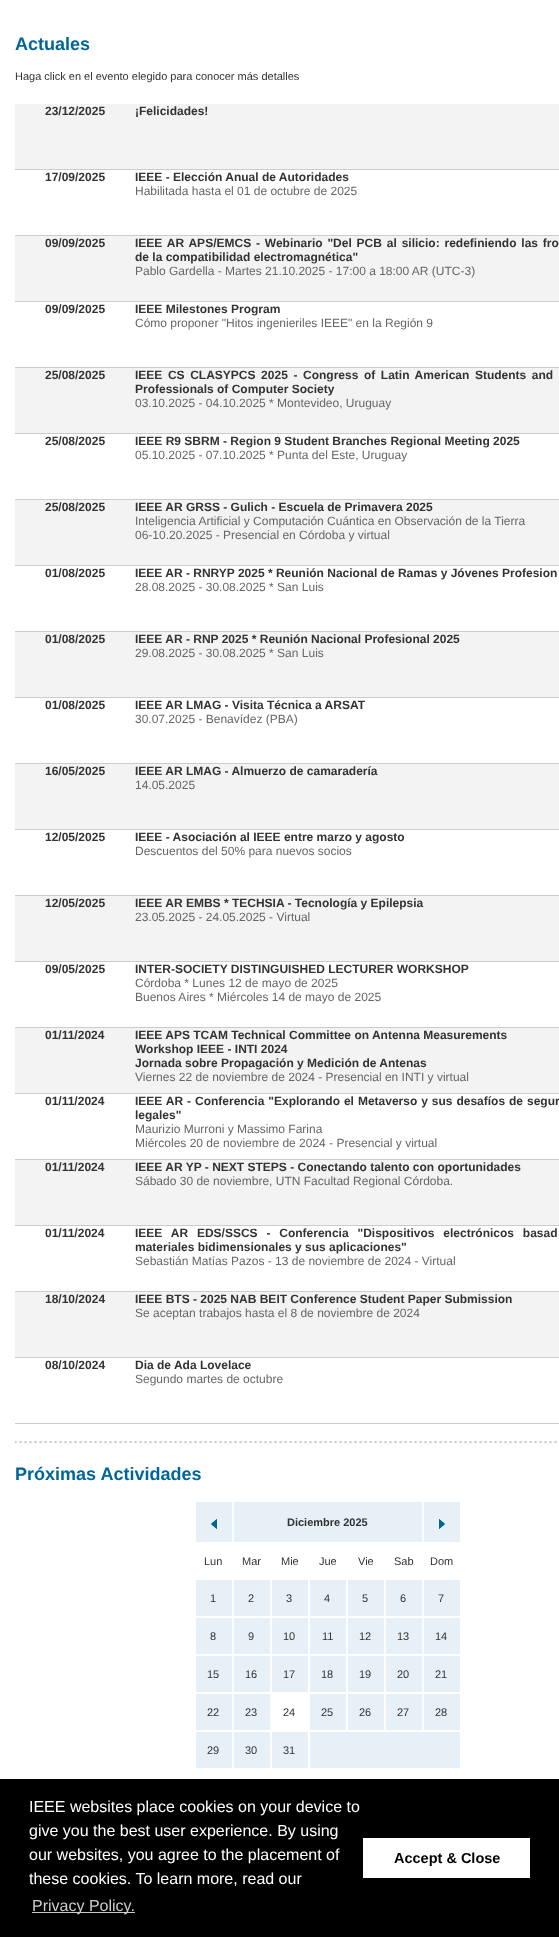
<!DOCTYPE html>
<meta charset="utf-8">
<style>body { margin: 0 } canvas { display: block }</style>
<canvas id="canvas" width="559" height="1937"></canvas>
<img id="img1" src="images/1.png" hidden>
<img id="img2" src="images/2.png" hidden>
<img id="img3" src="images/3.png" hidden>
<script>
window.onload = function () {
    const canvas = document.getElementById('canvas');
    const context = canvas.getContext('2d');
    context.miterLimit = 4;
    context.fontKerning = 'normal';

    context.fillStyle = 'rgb(255, 255, 255)';
    context.fillRect(0, 0, 559, 1937);
    context.fillStyle = 'rgb(243, 243, 243)';
    context.fillRect(15, 104, 544, 65);
    context.fillStyle = 'rgb(204, 204, 204)';
    context.fillRect(15, 169, 544, 1);
    context.fillRect(15, 235, 544, 1);
    context.fillStyle = 'rgb(243, 243, 243)';
    context.fillRect(15, 236, 544, 65);
    context.fillStyle = 'rgb(204, 204, 204)';
    context.fillRect(15, 301, 544, 1);
    context.fillRect(15, 367, 544, 1);
    context.fillStyle = 'rgb(243, 243, 243)';
    context.fillRect(15, 368, 544, 65);
    context.fillStyle = 'rgb(204, 204, 204)';
    context.fillRect(15, 433, 544, 1);
    context.fillRect(15, 499, 544, 1);
    context.fillStyle = 'rgb(243, 243, 243)';
    context.fillRect(15, 500, 544, 65);
    context.fillStyle = 'rgb(204, 204, 204)';
    context.fillRect(15, 565, 544, 1);
    context.fillRect(15, 631, 544, 1);
    context.fillStyle = 'rgb(243, 243, 243)';
    context.fillRect(15, 632, 544, 65);
    context.fillStyle = 'rgb(204, 204, 204)';
    context.fillRect(15, 697, 544, 1);
    context.fillRect(15, 763, 544, 1);
    context.fillStyle = 'rgb(243, 243, 243)';
    context.fillRect(15, 764, 544, 65);
    context.fillStyle = 'rgb(204, 204, 204)';
    context.fillRect(15, 829, 544, 1);
    context.fillRect(15, 895, 544, 1);
    context.fillStyle = 'rgb(243, 243, 243)';
    context.fillRect(15, 896, 544, 65);
    context.fillStyle = 'rgb(204, 204, 204)';
    context.fillRect(15, 961, 544, 1);
    context.fillRect(15, 1027, 544, 1);
    context.fillStyle = 'rgb(243, 243, 243)';
    context.fillRect(15, 1028, 544, 65);
    context.fillStyle = 'rgb(204, 204, 204)';
    context.fillRect(15, 1093, 544, 1);
    context.fillRect(15, 1159, 544, 1);
    context.fillStyle = 'rgb(243, 243, 243)';
    context.fillRect(15, 1160, 544, 65);
    context.fillStyle = 'rgb(204, 204, 204)';
    context.fillRect(15, 1225, 544, 1);
    context.fillRect(15, 1291, 544, 1);
    context.fillStyle = 'rgb(243, 243, 243)';
    context.fillRect(15, 1292, 544, 65);
    context.fillStyle = 'rgb(204, 204, 204)';
    context.fillRect(15, 1357, 544, 1);
    context.fillRect(15, 1423, 544, 1);
    context.drawImage(document.getElementById('img1'), 15, 1441, 543, 3);
    context.fillStyle = 'rgb(230, 240, 246)';
    context.fillRect(196, 1502, 36, 40);
    context.drawImage(document.getElementById('img2'), 211, 1519, 6, 10);
    context.fillRect(234, 1502, 188, 40);
    context.fillRect(424, 1502, 36, 40);
    context.drawImage(document.getElementById('img3'), 439, 1519, 6, 10);
    context.fillRect(196, 1580, 36, 36);
    context.fillRect(234, 1580, 36, 36);
    context.fillRect(272, 1580, 36, 36);
    context.fillRect(310, 1580, 36, 36);
    context.fillRect(348, 1580, 36, 36);
    context.fillRect(386, 1580, 36, 36);
    context.fillRect(424, 1580, 36, 36);
    context.fillRect(196, 1618, 36, 36);
    context.fillRect(234, 1618, 36, 36);
    context.fillRect(272, 1618, 36, 36);
    context.fillRect(310, 1618, 36, 36);
    context.fillRect(348, 1618, 36, 36);
    context.fillRect(386, 1618, 36, 36);
    context.fillRect(424, 1618, 36, 36);
    context.fillRect(196, 1656, 36, 36);
    context.fillRect(234, 1656, 36, 36);
    context.fillRect(272, 1656, 36, 36);
    context.fillRect(310, 1656, 36, 36);
    context.fillRect(348, 1656, 36, 36);
    context.fillRect(386, 1656, 36, 36);
    context.fillRect(424, 1656, 36, 36);
    context.fillRect(196, 1694, 36, 36);
    context.fillRect(234, 1694, 36, 36);
    context.fillRect(310, 1694, 36, 36);
    context.fillRect(348, 1694, 36, 36);
    context.fillRect(386, 1694, 36, 36);
    context.fillRect(424, 1694, 36, 36);
    context.fillRect(196, 1732, 36, 36);
    context.fillRect(234, 1732, 36, 36);
    context.fillRect(272, 1732, 36, 36);
    context.fillRect(310, 1732, 150, 36);
    context.fillStyle = 'rgb(0, 0, 0)';
    context.fillRect(0, 1779, 559, 158);
    context.fillStyle = 'rgb(204, 204, 204)';
    context.fillRect(32, 1912, 103, 1);
    context.fillStyle = 'rgb(255, 255, 255)';
    context.fillRect(363, 1838, 167, 40);
    context.font = 'bold 18px Liberation Sans';
    context.fillStyle = 'rgb(0, 102, 153)';
    context.fillText('Actuales', 15, 50);
    context.font = '11px Liberation Sans';
    context.fillStyle = 'rgb(51, 51, 51)';
    context.fillText('Haga click en el evento elegido para conocer más detalles', 15, 80);
    context.font = 'bold 12px Liberation Sans';
    context.fillText('23/12/2025', 45, 115);
    context.fillText('¡Felicidades!', 135, 115);
    context.fillText('17/09/2025', 45, 181);
    context.fillText('IEEE - Elección Anual de Autoridades', 135, 181);
    context.font = '12px Liberation Sans';
    context.fillStyle = 'rgb(102, 102, 102)';
    context.fillText('Habilitada hasta el 01 de octubre de 2025', 135, 195);
    context.font = 'bold 12px Liberation Sans';
    context.fillStyle = 'rgb(51, 51, 51)';
    context.fillText('09/09/2025', 45, 247);
    context.wordSpacing = '1.5px';
    context.fillText('IEEE AR APS/EMCS - Webinario "Del PCB al silicio: redefiniendo las fro', 135, 247);
    context.wordSpacing = '0px';
    context.fillText('de la compatibilidad electromagnética"', 135, 261);
    context.font = '12px Liberation Sans';
    context.fillStyle = 'rgb(102, 102, 102)';
    context.fillText('Pablo Gardella - Martes 21.10.2025 - 17:00 a 18:00 AR (UTC-3)', 135, 275);
    context.font = 'bold 12px Liberation Sans';
    context.fillStyle = 'rgb(51, 51, 51)';
    context.fillText('09/09/2025', 45, 313);
    context.fillText('IEEE Milestones Program', 135, 313);
    context.font = '12px Liberation Sans';
    context.fillStyle = 'rgb(102, 102, 102)';
    context.fillText('Cómo proponer "Hitos ingenieriles IEEE" en la Región 9', 135, 327);
    context.font = 'bold 12px Liberation Sans';
    context.fillStyle = 'rgb(51, 51, 51)';
    context.fillText('25/08/2025', 45, 379);
    context.wordSpacing = '2.25px';
    context.fillText('IEEE CS CLASYPCS 2025 - Congress of Latin American Students and', 135, 379);
    context.wordSpacing = '0px';
    context.fillText('Professionals of Computer Society', 135, 393);
    context.font = '12px Liberation Sans';
    context.fillStyle = 'rgb(102, 102, 102)';
    context.fillText('03.10.2025 - 04.10.2025 * Montevideo, Uruguay', 135, 407);
    context.font = 'bold 12px Liberation Sans';
    context.fillStyle = 'rgb(51, 51, 51)';
    context.fillText('25/08/2025', 45, 445);
    context.fillText('IEEE R9 SBRM - Region 9 Student Branches Regional Meeting 2025', 135, 445);
    context.font = '12px Liberation Sans';
    context.fillStyle = 'rgb(102, 102, 102)';
    context.fillText('05.10.2025 - 07.10.2025 * Punta del Este, Uruguay', 135, 459);
    context.font = 'bold 12px Liberation Sans';
    context.fillStyle = 'rgb(51, 51, 51)';
    context.fillText('25/08/2025', 45, 511);
    context.fillText('IEEE AR GRSS - Gulich - Escuela de Primavera 2025', 135, 511);
    context.font = '12px Liberation Sans';
    context.fillStyle = 'rgb(102, 102, 102)';
    context.fillText('Inteligencia Artificial y Computación Cuántica en Observación de la Tierra', 135, 525);
    context.fillText('06-10.20.2025 - Presencial en Córdoba y virtual', 135, 539);
    context.font = 'bold 12px Liberation Sans';
    context.fillStyle = 'rgb(51, 51, 51)';
    context.fillText('01/08/2025', 45, 577);
    context.fillText('IEEE AR - RNRYP 2025 * Reunión Nacional de Ramas y Jóvenes Profesion', 135, 577);
    context.font = '12px Liberation Sans';
    context.fillStyle = 'rgb(102, 102, 102)';
    context.fillText('28.08.2025 - 30.08.2025 * San Luis', 135, 591);
    context.font = 'bold 12px Liberation Sans';
    context.fillStyle = 'rgb(51, 51, 51)';
    context.fillText('01/08/2025', 45, 643);
    context.fillText('IEEE AR - RNP 2025 * Reunión Nacional Profesional 2025', 135, 643);
    context.font = '12px Liberation Sans';
    context.fillStyle = 'rgb(102, 102, 102)';
    context.fillText('29.08.2025 - 30.08.2025 * San Luis', 135, 657);
    context.font = 'bold 12px Liberation Sans';
    context.fillStyle = 'rgb(51, 51, 51)';
    context.fillText('01/08/2025', 45, 709);
    context.fillText('IEEE AR LMAG - Visita Técnica a ARSAT', 135, 709);
    context.font = '12px Liberation Sans';
    context.fillStyle = 'rgb(102, 102, 102)';
    context.fillText('30.07.2025 - Benavídez (PBA)', 135, 723);
    context.font = 'bold 12px Liberation Sans';
    context.fillStyle = 'rgb(51, 51, 51)';
    context.fillText('16/05/2025', 45, 775);
    context.fillText('IEEE AR LMAG - Almuerzo de camaradería', 135, 775);
    context.font = '12px Liberation Sans';
    context.fillStyle = 'rgb(102, 102, 102)';
    context.fillText('14.05.2025', 135, 789);
    context.font = 'bold 12px Liberation Sans';
    context.fillStyle = 'rgb(51, 51, 51)';
    context.fillText('12/05/2025', 45, 841);
    context.fillText('IEEE - Asociación al IEEE entre marzo y agosto', 135, 841);
    context.font = '12px Liberation Sans';
    context.fillStyle = 'rgb(102, 102, 102)';
    context.fillText('Descuentos del 50% para nuevos socios', 135, 855);
    context.font = 'bold 12px Liberation Sans';
    context.fillStyle = 'rgb(51, 51, 51)';
    context.fillText('12/05/2025', 45, 907);
    context.fillText('IEEE AR EMBS * TECHSIA - Tecnología y Epilepsia', 135, 907);
    context.font = '12px Liberation Sans';
    context.fillStyle = 'rgb(102, 102, 102)';
    context.fillText('23.05.2025 - 24.05.2025 - Virtual', 135, 921);
    context.font = 'bold 12px Liberation Sans';
    context.fillStyle = 'rgb(51, 51, 51)';
    context.fillText('09/05/2025', 45, 973);
    context.fillText('INTER-SOCIETY DISTINGUISHED LECTURER WORKSHOP', 135, 973);
    context.font = '12px Liberation Sans';
    context.fillStyle = 'rgb(102, 102, 102)';
    context.fillText('Córdoba * Lunes 12 de mayo de 2025', 135, 987);
    context.fillText('Buenos Aires * Miércoles 14 de mayo de 2025', 135, 1001);
    context.font = 'bold 12px Liberation Sans';
    context.fillStyle = 'rgb(51, 51, 51)';
    context.fillText('01/11/2024', 45, 1039);
    context.fillText('IEEE APS TCAM Technical Committee on Antenna Measurements', 135, 1039);
    context.fillText('Workshop IEEE - INTI 2024', 135, 1053);
    context.fillText('Jornada sobre Propagación y Medición de Antenas', 135, 1067);
    context.font = '12px Liberation Sans';
    context.fillStyle = 'rgb(102, 102, 102)';
    context.fillText('Viernes 22 de noviembre de 2024 - Presencial en INTI y virtual', 135, 1081);
    context.font = 'bold 12px Liberation Sans';
    context.fillStyle = 'rgb(51, 51, 51)';
    context.fillText('01/11/2024', 45, 1105);
    context.wordSpacing = '0.6px';
    context.fillText('IEEE AR - Conferencia "Explorando el Metaverso y sus desafíos de segur', 135, 1105);
    context.wordSpacing = '0px';
    context.fillText('legales"', 135, 1119);
    context.font = '12px Liberation Sans';
    context.fillStyle = 'rgb(102, 102, 102)';
    context.fillText('Maurizio Murroni y Massimo Farina', 135, 1133);
    context.fillText('Miércoles 20 de noviembre de 2024 - Presencial y virtual', 135, 1147);
    context.font = 'bold 12px Liberation Sans';
    context.fillStyle = 'rgb(51, 51, 51)';
    context.fillText('01/11/2024', 45, 1171);
    context.fillText('IEEE AR YP - NEXT STEPS - Conectando talento con oportunidades', 135, 1171);
    context.font = '12px Liberation Sans';
    context.fillStyle = 'rgb(102, 102, 102)';
    context.fillText('Sábado 30 de noviembre, UTN Facultad Regional Córdoba.', 135, 1185);
    context.font = 'bold 12px Liberation Sans';
    context.fillStyle = 'rgb(51, 51, 51)';
    context.fillText('01/11/2024', 45, 1237);
    context.wordSpacing = '5.5px';
    context.fillText('IEEE AR EDS/SSCS - Conferencia "Dispositivos electrónicos basad', 135, 1237);
    context.wordSpacing = '0px';
    context.fillText('materiales bidimensionales y sus aplicaciones"', 135, 1251);
    context.font = '12px Liberation Sans';
    context.fillStyle = 'rgb(102, 102, 102)';
    context.fillText('Sebastián Matías Pazos - 13 de noviembre de 2024 - Virtual', 135, 1265);
    context.font = 'bold 12px Liberation Sans';
    context.fillStyle = 'rgb(51, 51, 51)';
    context.fillText('18/10/2024', 45, 1303);
    context.fillText('IEEE BTS - 2025 NAB BEIT Conference Student Paper Submission', 135, 1303);
    context.font = '12px Liberation Sans';
    context.fillStyle = 'rgb(102, 102, 102)';
    context.fillText('Se aceptan trabajos hasta el 8 de noviembre de 2024', 135, 1317);
    context.font = 'bold 12px Liberation Sans';
    context.fillStyle = 'rgb(51, 51, 51)';
    context.fillText('08/10/2024', 45, 1369);
    context.fillText('Dia de Ada Lovelace', 135, 1369);
    context.font = '12px Liberation Sans';
    context.fillStyle = 'rgb(102, 102, 102)';
    context.fillText('Segundo martes de octubre', 135, 1383);
    context.font = 'bold 18px Liberation Sans';
    context.fillStyle = 'rgb(0, 102, 153)';
    context.fillText('Próximas Actividades', 15, 1480);
    context.font = 'bold 11px Liberation Sans';
    context.fillStyle = 'rgb(51, 51, 51)';
    context.fillText('Diciembre 2025', 287, 1526);
    context.font = '11px Liberation Sans';
    context.fillText('Lun', 204, 1565);
    context.fillText('Mar', 242, 1565);
    context.fillText('Mie', 281, 1565);
    context.fillText('Jue', 319, 1565);
    context.fillText('Vie', 358, 1565);
    context.fillText('Sab', 394, 1565);
    context.fillText('Dom', 430, 1565);
    context.fillText('1', 210, 1602);
    context.fillText('2', 248, 1602);
    context.fillText('3', 286, 1602);
    context.fillText('4', 324, 1602);
    context.fillText('5', 362, 1602);
    context.fillText('6', 400, 1602);
    context.fillText('7', 438, 1602);
    context.fillText('8', 210, 1640);
    context.fillText('9', 248, 1640);
    context.fillText('10', 283, 1640);
    context.fillText('11', 322, 1640);
    context.fillText('12', 359, 1640);
    context.fillText('13', 397, 1640);
    context.fillText('14', 435, 1640);
    context.fillText('15', 207, 1678);
    context.fillText('16', 245, 1678);
    context.fillText('17', 283, 1678);
    context.fillText('18', 321, 1678);
    context.fillText('19', 359, 1678);
    context.fillText('20', 397, 1678);
    context.fillText('21', 435, 1678);
    context.fillText('22', 207, 1716);
    context.fillText('23', 245, 1716);
    context.fillText('24', 283, 1716);
    context.fillText('25', 321, 1716);
    context.fillText('26', 359, 1716);
    context.fillText('27', 397, 1716);
    context.fillText('28', 435, 1716);
    context.fillText('29', 207, 1754);
    context.fillText('30', 245, 1754);
    context.fillText('31', 283, 1754);
    context.font = '16px Liberation Sans';
    context.fillStyle = 'rgb(255, 255, 255)';
    context.fillText('IEEE websites place cookies on your device to', 29, 1812);
    context.fillText('give you the best user experience. By using', 29, 1836);
    context.fillText('our websites, you agree to the placement of', 29, 1860);
    context.fillText('these cookies. To learn more, read our', 29, 1884);
    context.fillStyle = 'rgb(204, 204, 204)';
    context.fillText('Privacy Policy.', 32, 1911);
    context.font = 'bold 14.5px Liberation Sans';
    context.fillStyle = 'rgb(0, 0, 0)';
    context.fillText('Accept & Close', 394, 1863);
};
</script>
